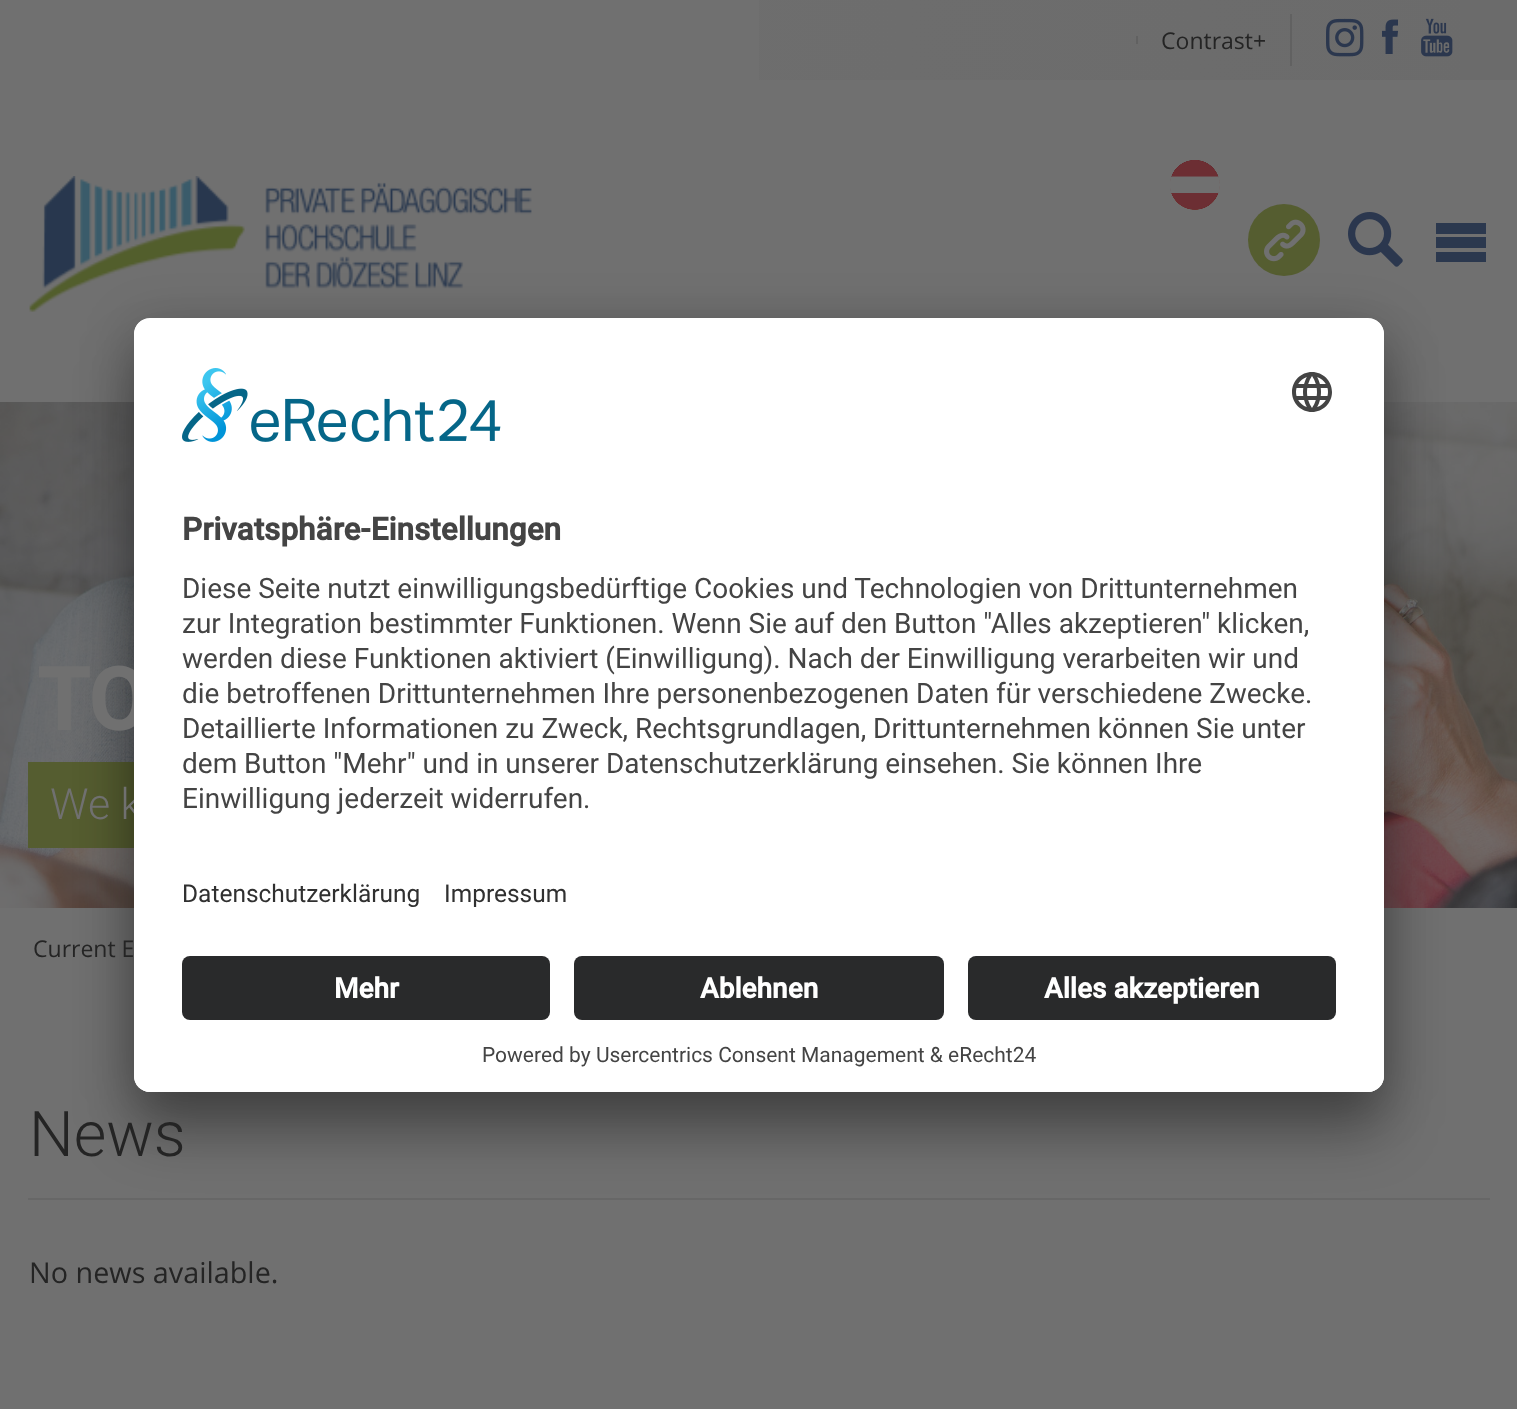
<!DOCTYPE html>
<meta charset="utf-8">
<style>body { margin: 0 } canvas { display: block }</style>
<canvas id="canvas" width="1517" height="1409"></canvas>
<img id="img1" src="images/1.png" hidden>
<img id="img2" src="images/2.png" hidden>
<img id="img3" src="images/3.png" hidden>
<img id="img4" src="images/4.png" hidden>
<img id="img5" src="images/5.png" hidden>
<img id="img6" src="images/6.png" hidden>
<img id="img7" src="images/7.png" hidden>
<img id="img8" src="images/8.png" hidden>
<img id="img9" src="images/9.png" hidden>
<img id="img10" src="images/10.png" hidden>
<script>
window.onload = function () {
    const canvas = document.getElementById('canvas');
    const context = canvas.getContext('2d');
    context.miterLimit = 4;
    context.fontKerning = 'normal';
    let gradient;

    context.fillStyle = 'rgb(112, 112, 112)';
    context.fillRect(0, 0, 1517, 1409);
    gradient = context.createLinearGradient(28, 0, 1490, 0);
    gradient.addColorStop(0, 'rgb(112, 112, 112)');
    gradient.addColorStop(1, 'rgb(107, 107, 107)');
    context.fillStyle = gradient;
    context.fillRect(759, 0, 701, 80);
    context.fillStyle = 'rgb(97, 97, 97)';
    context.fillRect(1136, 36, 2, 8);
    context.fillRect(1290, 14, 2, 52);
    context.drawImage(document.getElementById('img1'), 1326, 18, 38, 39);
    context.drawImage(document.getElementById('img2'), 1382, 19, 16, 35);
    context.drawImage(document.getElementById('img3'), 1421, 18, 32, 39);
    context.fillStyle = 'rgb(107, 107, 107)';
    context.fillRect(1460, 0, 57, 80);
    context.drawImage(document.getElementById('img4'), 29, 176, 503, 136);
    context.drawImage(document.getElementById('img5'), 1170, 160, 50, 50);
    context.fillStyle = 'rgb(85, 93, 48)';
    context.beginPath();
    context.arc(1284, 240, 36, 0, 2 * Math.PI);
    context.fill();
    context.drawImage(document.getElementById('img6'), 1264, 219, 42, 43);
    context.drawImage(document.getElementById('img7'), 1348, 212, 55, 55);
    context.fillStyle = 'rgb(43, 56, 78)';
    context.beginPath();
    context.moveTo(1436, 223);
    context.lineTo(1486, 223);
    context.lineTo(1486, 234);
    context.lineTo(1436, 234);
    context.closePath();
    context.moveTo(1436, 237);
    context.lineTo(1486, 237);
    context.lineTo(1486, 248);
    context.lineTo(1436, 248);
    context.closePath();
    context.moveTo(1436, 252);
    context.lineTo(1486, 252);
    context.lineTo(1486, 262);
    context.lineTo(1436, 262);
    context.closePath();
    context.fill();
    context.drawImage(document.getElementById('img8'), 0, 402, 1517, 506);
    context.fillStyle = 'rgb(85, 93, 48)';
    context.fillRect(28, 762, 106, 86);
    context.fillStyle = 'rgb(103, 103, 103)';
    context.fillRect(28, 1198, 1462, 2);
    context.fillStyle = 'rgba(0, 0, 0, 0.3)';
    context.filter = 'blur(28px)';
    context.beginPath();
    context.roundRect(134, 358, 1250, 774, 16);
    context.fill();
    context.filter = 'none';
    context.fillStyle = 'rgba(0, 0, 0, 0.22)';
    context.filter = 'blur(26px)';
    context.beginPath();
    context.roundRect(134, 328, 1250, 774, 16);
    context.fill();
    context.filter = 'none';
    context.font = '23px Open Sans';
    context.fillStyle = 'rgb(36, 36, 36)';
    context.fillText('Contrast+', 1161, 49);
    context.font = 'bold 86px Roboto';
    context.fillStyle = 'rgb(112, 112, 112)';
    context.fillText('TO', 37, 730);
    context.font = '300 43px Roboto';
    context.fillText('We k', 50, 819);
    context.font = '23px Open Sans';
    context.fillStyle = 'rgb(36, 36, 36)';
    context.fillText('Current E', 33, 957);
    context.font = '300 63px Roboto';
    context.fillText('News', 29, 1156);
    context.font = '28.75px Open Sans';
    context.fillText('No news available.', 29, 1283);
    context.fillStyle = 'rgb(255, 255, 255)';
    context.beginPath();
    context.roundRect(134, 318, 1250, 774, 16);
    context.fill();
    context.save();
    context.beginPath();
    context.roundRect(134, 318, 1250, 774, 16);
    context.clip();
    context.beginPath();
    context.roundRect(134, 318, 1250, 622, [16, 16, 0, 0]);
    context.clip();
    context.fillRect(134, 320, 1250, 620);
    context.restore();
    context.drawImage(document.getElementById('img9'), 182, 368, 319, 74);
    context.drawImage(document.getElementById('img10'), 1292, 372, 40, 40);
    context.font = 'bold 31.5px Roboto';
    context.fillStyle = 'rgb(68, 68, 68)';
    context.fillText('Privatsphäre-Einstellungen', 182, 540);
    context.font = '28px Roboto';
    context.fillText('Diese Seite nutzt einwilligungsbedürftige Cookies und Technologien von Drittunternehmen', 182, 598);
    context.fillText('zur Integration bestimmter Funktionen. Wenn Sie auf den Button "Alles akzeptieren" klicken,', 182, 633);
    context.fillText('werden diese Funktionen aktiviert (Einwilligung). Nach der Einwilligung verarbeiten wir und', 182, 668);
    context.fillText('die betroffenen Drittunternehmen Ihre personenbezogenen Daten für verschiedene Zwecke.', 182, 703);
    context.fillText('Detaillierte Informationen zu Zweck, Rechtsgrundlagen, Drittunternehmen können Sie unter', 182, 738);
    context.fillText('dem Button "Mehr" und in unserer Datenschutzerklärung einsehen. Sie können Ihre', 182, 773);
    context.fillText('Einwilligung jederzeit widerrufen.', 182, 808);
    context.font = '24.5px Roboto';
    context.fillStyle = 'rgb(48, 48, 48)';
    context.fillText('Datenschutzerklärung', 182, 902);
    context.fillText('Impressum', 444, 902);
    context.fillStyle = 'rgb(255, 255, 255)';
    context.beginPath();
    context.roundRect(134, 940, 1250, 152, [0, 0, 16, 16]);
    context.fill();
    context.fillStyle = 'rgb(41, 42, 43)';
    context.beginPath();
    context.roundRect(182, 956, 368, 64, 8);
    context.fill();
    context.font = 'bold 28px Roboto';
    context.fillStyle = 'rgb(255, 255, 255)';
    context.fillText('Mehr', 334, 998);
    context.fillStyle = 'rgb(41, 42, 43)';
    context.beginPath();
    context.roundRect(574, 956, 370, 64, 8);
    context.fill();
    context.fillStyle = 'rgb(255, 255, 255)';
    context.fillText('Ablehnen', 700, 998);
    context.fillStyle = 'rgb(41, 42, 43)';
    context.beginPath();
    context.roundRect(968, 956, 368, 64, 8);
    context.fill();
    context.fillStyle = 'rgb(255, 255, 255)';
    context.fillText('Alles akzeptieren', 1044, 998);
    context.font = '21px Roboto';
    context.fillStyle = 'rgb(68, 68, 68)';
    context.fillText('Powered by Usercentrics Consent Management & eRecht24', 482, 1062);
};
</script>
